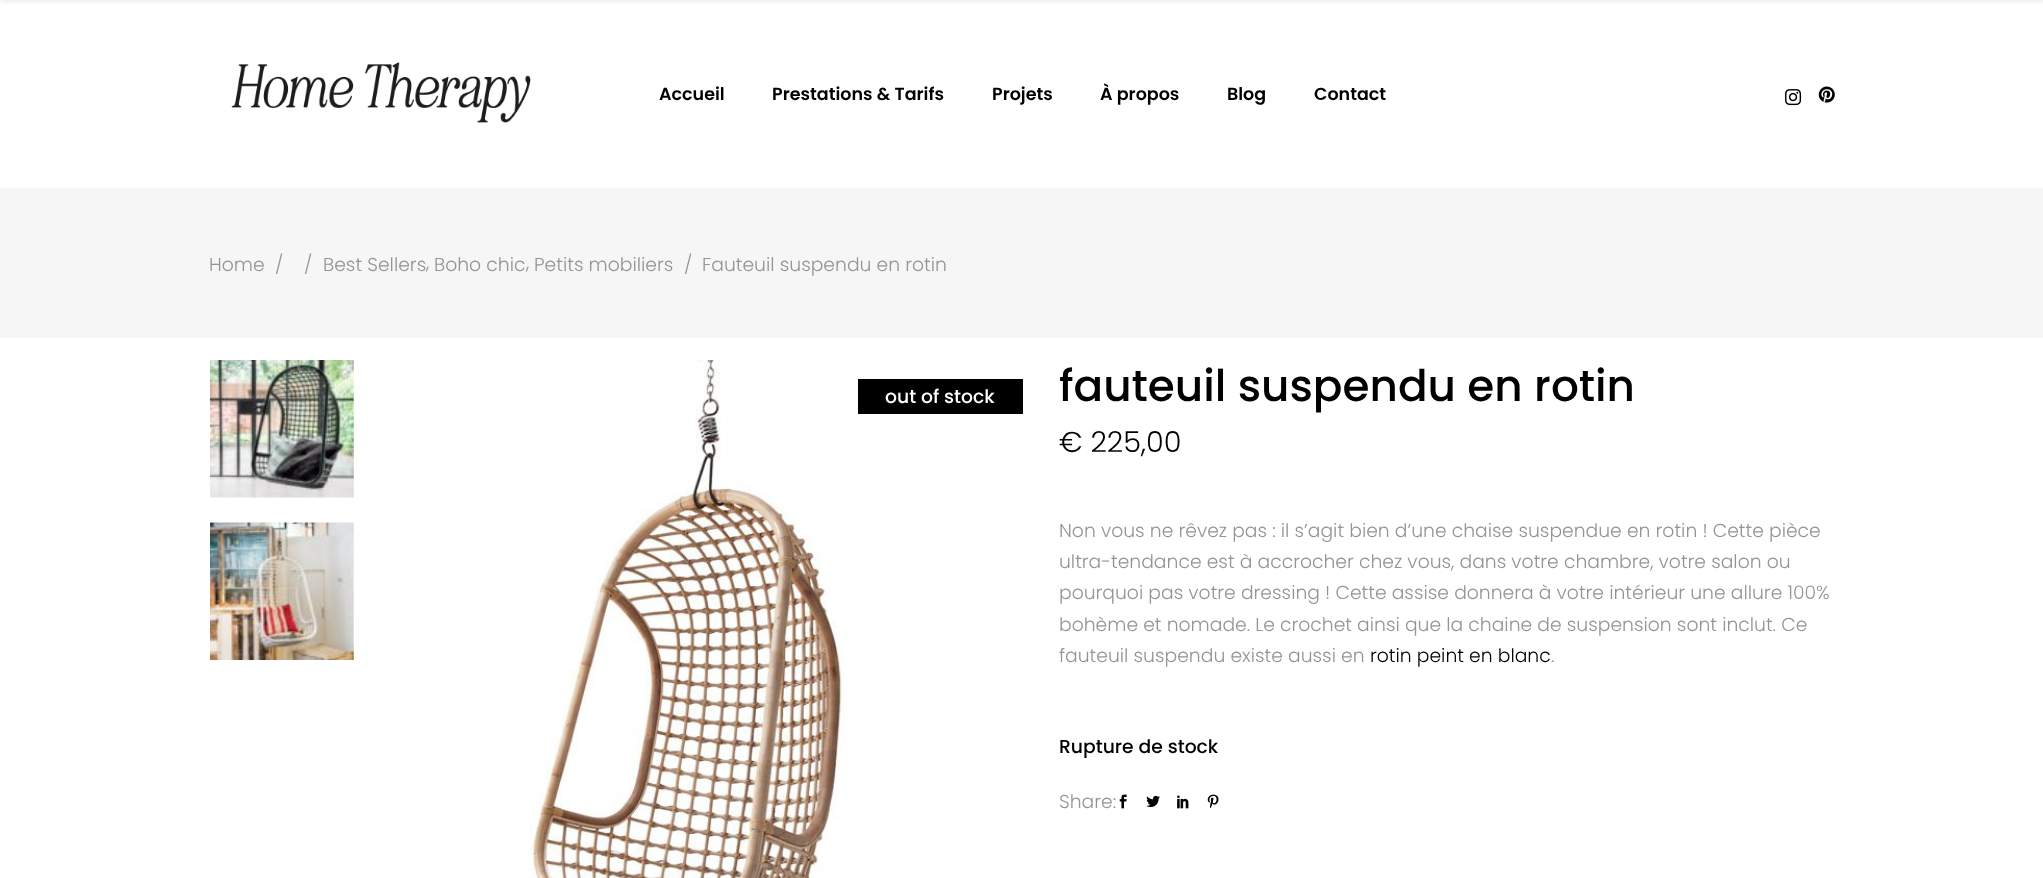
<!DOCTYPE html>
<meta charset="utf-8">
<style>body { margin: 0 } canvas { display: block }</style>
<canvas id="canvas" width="2043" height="878"></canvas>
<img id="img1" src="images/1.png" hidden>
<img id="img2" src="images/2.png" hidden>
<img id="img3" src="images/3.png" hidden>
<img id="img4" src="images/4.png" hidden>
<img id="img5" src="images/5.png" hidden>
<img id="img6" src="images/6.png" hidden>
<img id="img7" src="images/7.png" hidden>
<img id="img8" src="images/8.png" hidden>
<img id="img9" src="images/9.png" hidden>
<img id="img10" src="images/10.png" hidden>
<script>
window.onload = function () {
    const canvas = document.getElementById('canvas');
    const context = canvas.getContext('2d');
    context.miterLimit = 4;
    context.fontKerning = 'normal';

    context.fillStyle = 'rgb(255, 255, 255)';
    context.fillRect(0, 0, 2043, 878);
    context.fillStyle = 'rgba(0, 0, 0, 0.1)';
    context.filter = 'blur(2.5px)';
    context.beginPath();
    context.rect(1, -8, 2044, 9);
    context.fill();
    context.filter = 'none';
    context.drawImage(document.getElementById('img1'), 231, 62, 300, 61);
    context.drawImage(document.getElementById('img2'), 1785, 89, 17, 17);
    context.drawImage(document.getElementById('img3'), 1818, 86, 17, 17);
    context.fillStyle = 'rgb(246, 246, 246)';
    context.fillRect(0, 188, 2043, 150);
    context.drawImage(document.getElementById('img4'), 210, 360, 144, 138);
    context.drawImage(document.getElementById('img5'), 529, 360, 316, 518);
    context.fillStyle = 'rgb(0, 0, 0)';
    context.fillRect(858, 379, 165, 35);
    context.drawImage(document.getElementById('img6'), 210, 522, 144, 138);
    context.drawImage(document.getElementById('img7'), 1119, 794, 8, 15);
    context.drawImage(document.getElementById('img8'), 1146, 795, 14, 13);
    context.drawImage(document.getElementById('img9'), 1177, 795, 12, 14);
    context.drawImage(document.getElementById('img10'), 1207, 794, 12, 15);
    context.font = '600 17.5px Poppins';
    context.fillText('Accueil', 659, 100);
    context.fillText('Prestations & Tarifs', 772, 100);
    context.fillText('Projets', 992, 100);
    context.fillText('À propos', 1100, 100);
    context.fillText('Blog', 1227, 100);
    context.fillText('Contact', 1314, 100);
    context.font = '300 18.75px Poppins';
    context.fillStyle = 'rgb(148, 148, 148)';
    context.fillText('Home', 209, 271);
    context.fillText('/', 275, 271);
    context.fillText('/', 304, 271);
    context.fillText('Best Sellers', 323, 271);
    context.fillText(',', 426, 269);
    context.fillText('Boho chic', 434, 271);
    context.fillText(',', 526, 269);
    context.fillText('Petits mobiliers', 534, 271);
    context.fillText('/', 684, 271);
    context.fillText('Fauteuil suspendu en rotin', 702, 271);
    context.font = '500 18.75px Poppins';
    context.fillStyle = 'rgb(255, 255, 255)';
    context.fillText('out of stock', 885, 403);
    context.font = '500 43.75px Poppins';
    context.fillStyle = 'rgb(0, 0, 0)';
    context.fillText('fauteuil suspendu en rotin', 1059, 401);
    context.font = '300 28.75px Poppins';
    context.fillText('€ 225,00', 1059, 452);
    context.font = '300 18.75px Poppins';
    context.fillStyle = 'rgb(148, 148, 148)';
    context.fillText('Non vous ne rêvez pas : il s’agit bien d’une chaise suspendue en rotin ! Cette pièce', 1059, 537);
    context.fillText('ultra-tendance est à accrocher chez vous, dans votre chambre, votre salon ou', 1059, 568);
    context.fillText('pourquoi pas votre dressing ! Cette assise donnera à votre intérieur une allure 100%', 1059, 599);
    context.fillText('bohème et nomade. Le crochet ainsi que la chaine de suspension sont inclut. Ce', 1059, 631);
    context.fillText('fauteuil suspendu existe aussi en', 1059, 662);
    context.fillStyle = 'rgb(0, 0, 0)';
    context.fillText('rotin peint en blanc', 1370, 662);
    context.fillStyle = 'rgb(148, 148, 148)';
    context.fillText('.', 1551, 662);
    context.font = '500 18.75px Poppins';
    context.fillStyle = 'rgb(0, 0, 0)';
    context.fillText('Rupture de stock', 1059, 753);
    context.font = '300 18.75px Poppins';
    context.fillStyle = 'rgb(148, 148, 148)';
    context.fillText('Share:', 1059, 808);
};
</script>
